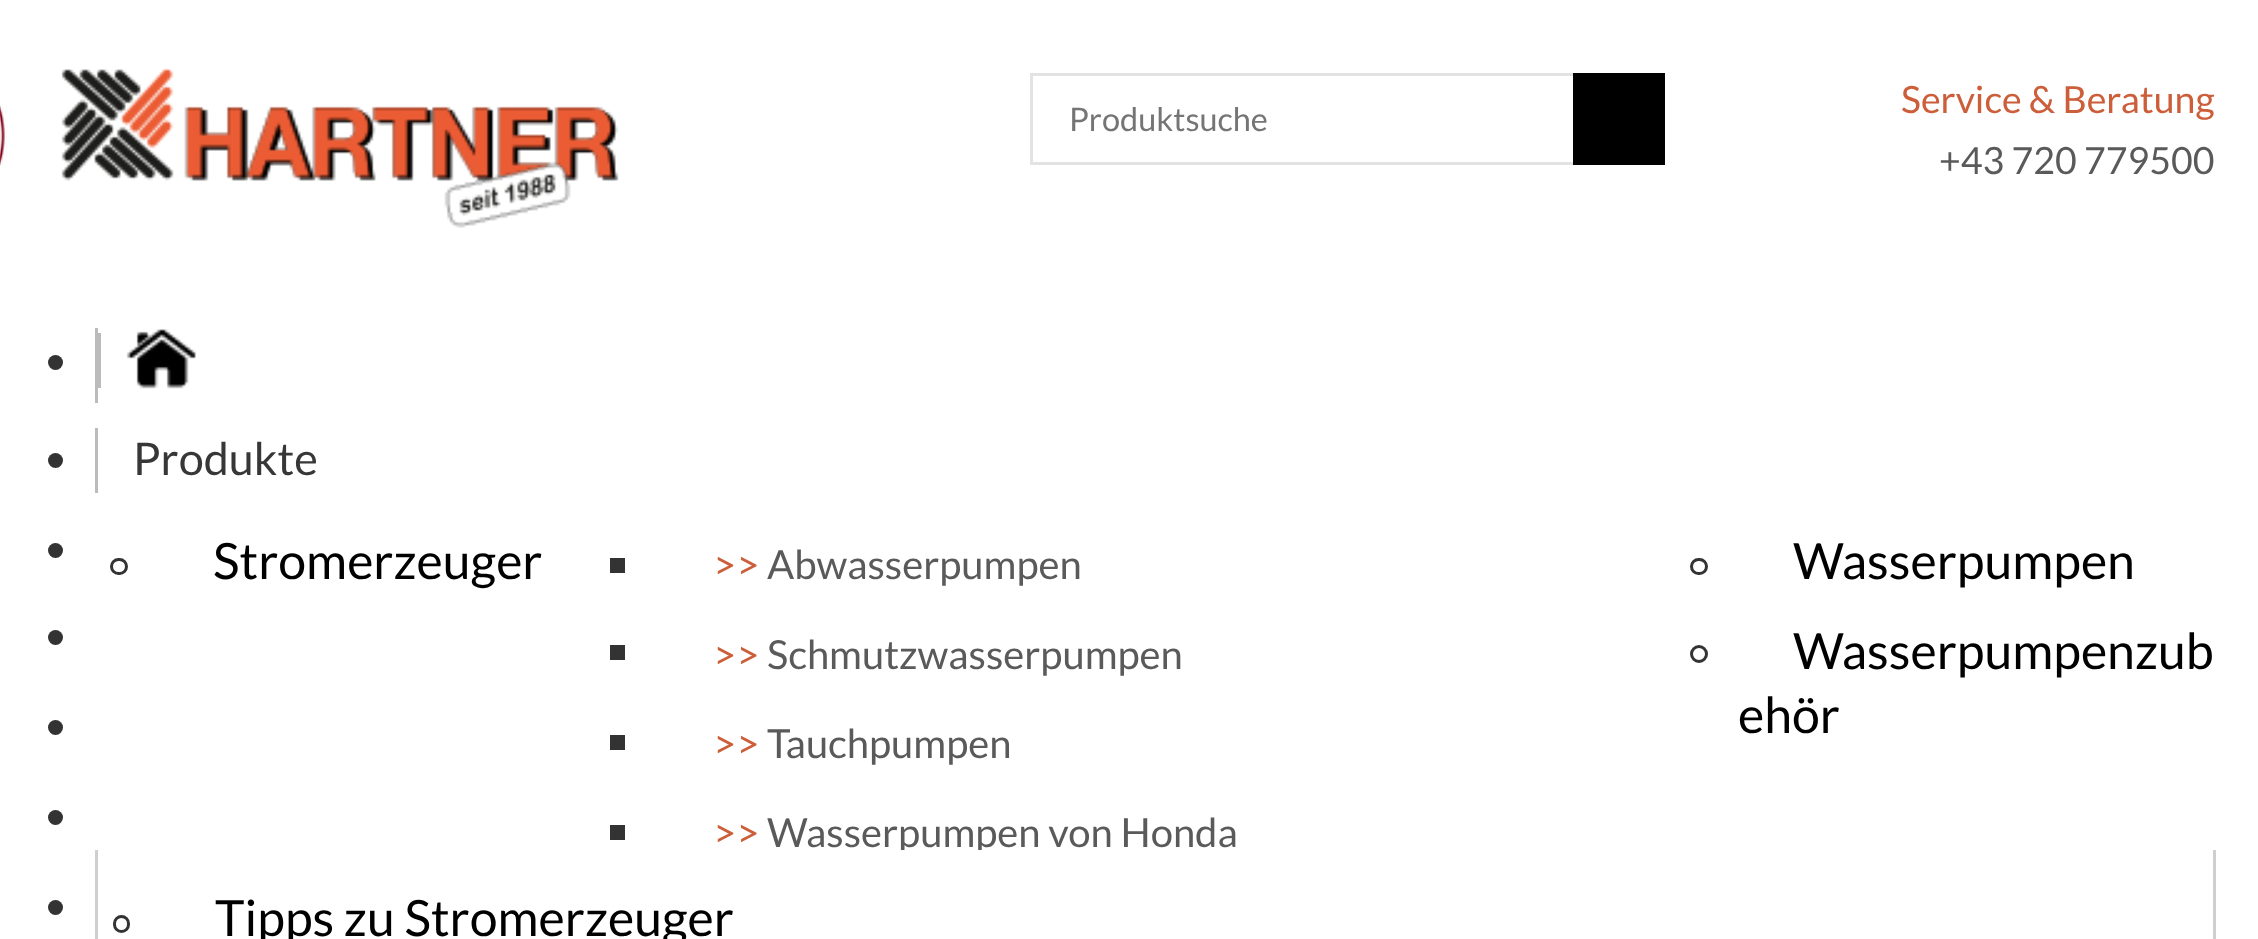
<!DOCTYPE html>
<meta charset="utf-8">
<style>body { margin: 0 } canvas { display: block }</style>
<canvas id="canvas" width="2258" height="939"></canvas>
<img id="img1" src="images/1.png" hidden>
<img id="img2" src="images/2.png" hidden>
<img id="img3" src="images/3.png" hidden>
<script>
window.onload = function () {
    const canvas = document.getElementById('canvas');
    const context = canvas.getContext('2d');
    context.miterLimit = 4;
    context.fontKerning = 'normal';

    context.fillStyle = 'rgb(255, 255, 255)';
    context.fillRect(0, 0, 2258, 939);
    context.drawImage(document.getElementById('img1'), 0, 105, 8, 62);
    context.drawImage(document.getElementById('img2'), 61, 67, 558, 161);
    context.strokeStyle = 'rgb(227, 227, 227)';
    context.lineWidth = 3;
    context.strokeRect(1031.5, 74.5, 632, 89);
    context.fillStyle = 'rgb(0, 0, 0)';
    context.fillRect(1573, 73, 92, 92);
    context.fillStyle = 'rgb(187, 187, 187)';
    context.fillRect(95, 328, 3, 75);
    context.fillStyle = 'rgb(51, 51, 51)';
    context.beginPath();
    context.arc(55.5, 362.5, 7.5, 0, 2 * Math.PI);
    context.fill();
    context.fillStyle = 'rgb(187, 187, 187)';
    context.fillRect(98, 333, 3, 55);
    context.drawImage(document.getElementById('img3'), 126, 329, 70, 60);
    context.fillStyle = 'rgb(51, 51, 51)';
    context.beginPath();
    context.arc(55.5, 550.5, 7.5, 0, 2 * Math.PI);
    context.fill();
    context.fillStyle = 'rgb(187, 187, 187)';
    context.fillRect(95, 428, 3, 65);
    context.fillStyle = 'rgb(51, 51, 51)';
    context.beginPath();
    context.arc(55.5, 460.5, 7.5, 0, 2 * Math.PI);
    context.fill();
    context.beginPath();
    context.roundRect(111.5, 559.5, 15, 14, 7);
    context.strokeStyle = 'rgb(51, 51, 51)';
    context.stroke();
    context.fillRect(610, 558, 15, 15);
    context.fillRect(610, 645, 15, 15);
    context.fillRect(610, 735, 15, 15);
    context.fillRect(610, 825, 15, 15);
    context.beginPath();
    context.roundRect(1691.5, 559.5, 15, 14, 7);
    context.stroke();
    context.beginPath();
    context.arc(1699, 654, 7.5, 0, 2 * Math.PI);
    context.stroke();
    context.beginPath();
    context.arc(55.5, 637.5, 7.5, 0, 2 * Math.PI);
    context.fill();
    context.beginPath();
    context.arc(55.5, 727.5, 7.5, 0, 2 * Math.PI);
    context.fill();
    context.beginPath();
    context.arc(55.5, 907.5, 7.5, 0, 2 * Math.PI);
    context.fill();
    context.beginPath();
    context.arc(55.5, 817.5, 7.5, 0, 2 * Math.PI);
    context.fill();
    context.fillStyle = 'rgb(207, 207, 207)';
    context.fillRect(2213, 850, 3, 89);
    context.fillRect(95, 850, 3, 89);
    context.beginPath();
    context.roundRect(114.5, 916.5, 14, 15, 7);
    context.stroke();
    context.font = '32.5px Lato';
    context.fillStyle = 'rgb(117, 117, 117)';
    context.fillText('Produktsuche', 1069, 131);
    context.font = '37.5px Lato';
    context.fillStyle = 'rgb(204, 94, 58)';
    context.fillText('Service & Beratung', 1901, 113);
    context.fillStyle = 'rgb(90, 90, 90)';
    context.fillText('+43 720 779500', 1939, 174);
    context.font = '45px Lato';
    context.fillStyle = 'rgb(56, 55, 55)';
    context.fillText('Produkte', 133, 475);
    context.font = '50px Lato';
    context.fillStyle = 'rgb(0, 0, 0)';
    context.fillText('Stromerzeuger', 213, 579);
    context.font = '40px Lato';
    context.fillStyle = 'rgb(204, 94, 58)';
    context.fillText('>>', 713, 579);
    context.fillStyle = 'rgb(90, 90, 90)';
    context.fillText('Abwasserpumpen', 767, 579);
    context.fillStyle = 'rgb(204, 94, 58)';
    context.fillText('>>', 713, 669);
    context.fillStyle = 'rgb(90, 90, 90)';
    context.fillText('Schmutzwasserpumpen', 767, 669);
    context.fillStyle = 'rgb(204, 94, 58)';
    context.fillText('>>', 713, 758);
    context.fillStyle = 'rgb(90, 90, 90)';
    context.fillText('Tauchpumpen', 767, 758);
    context.fillStyle = 'rgb(204, 94, 58)';
    context.fillText('>>', 713, 847);
    context.fillStyle = 'rgb(90, 90, 90)';
    context.fillText('Wasserpumpen von Honda', 767, 847);
    context.font = '50px Lato';
    context.fillStyle = 'rgb(0, 0, 0)';
    context.fillText('Wasserpumpen', 1793, 579);
    context.fillText('Wasserpumpenzub', 1793, 669);
    context.fillText('ehör', 1738, 733);
    context.fillStyle = 'rgb(255, 255, 255)';
    context.fillRect(900, 850, 82, 4);
    context.fillStyle = 'rgb(0, 0, 0)';
    context.fillText('Tipps zu Stromerzeuger', 215, 936);
};
</script>
